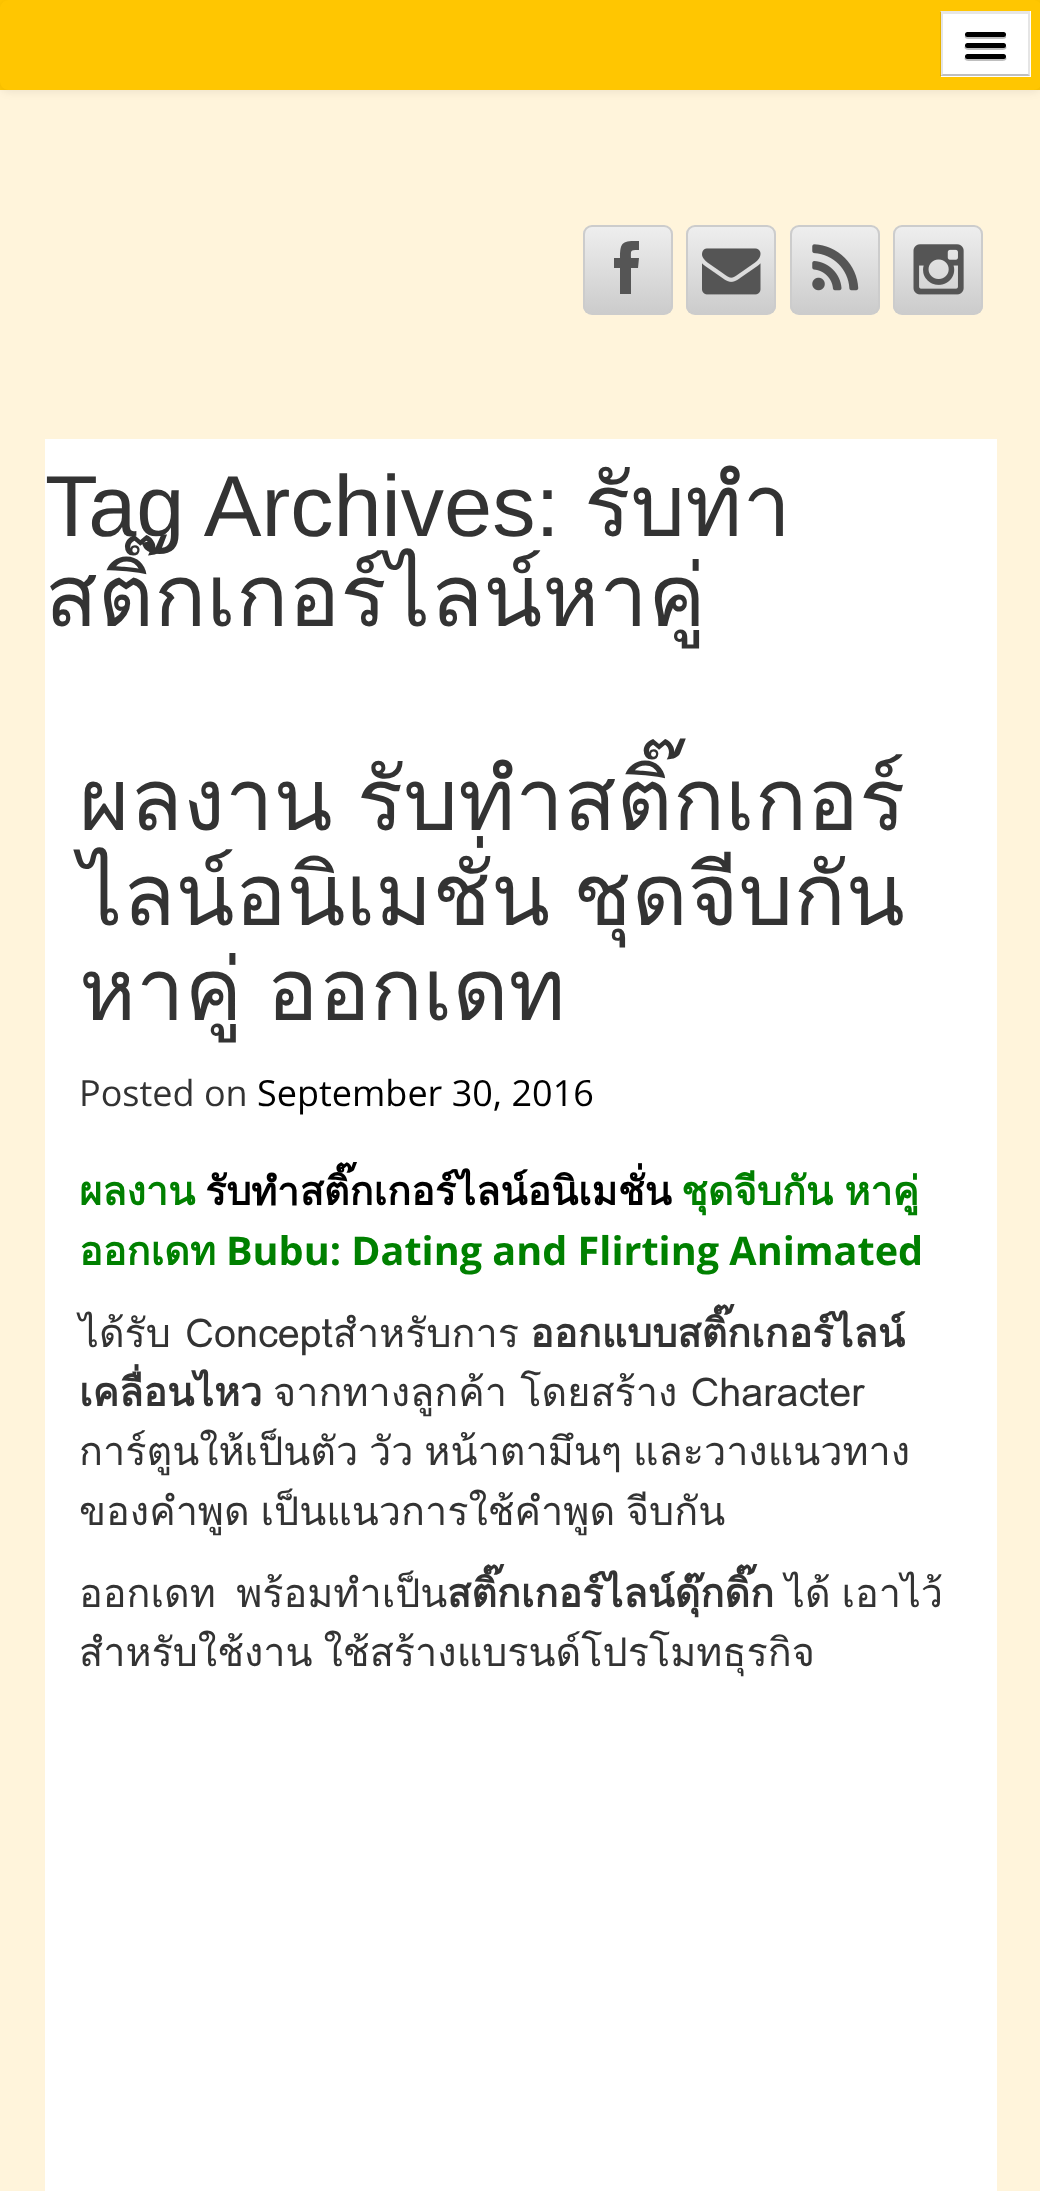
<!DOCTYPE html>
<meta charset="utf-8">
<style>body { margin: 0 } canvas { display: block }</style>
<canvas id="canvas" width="1040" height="2191"></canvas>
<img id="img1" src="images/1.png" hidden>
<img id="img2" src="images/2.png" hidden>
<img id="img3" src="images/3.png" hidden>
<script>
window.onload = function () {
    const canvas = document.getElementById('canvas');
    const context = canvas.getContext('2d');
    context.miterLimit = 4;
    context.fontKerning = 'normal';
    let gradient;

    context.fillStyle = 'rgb(255, 244, 219)';
    context.fillRect(0, 0, 1040, 2191);
    context.fillStyle = 'rgb(255, 198, 1)';
    context.fillRect(0, 0, 1040, 90);
    context.save();
    context.beginPath();
    context.moveTo(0, 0);
    context.lineTo(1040, 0);
    context.lineTo(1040, 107);
    context.lineTo(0, 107);
    context.closePath();
    context.moveTo(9, 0);
    context.lineTo(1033, 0);
    context.bezierCurveTo(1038, 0, 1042, 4, 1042, 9);
    context.lineTo(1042, 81);
    context.bezierCurveTo(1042, 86, 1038, 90, 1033, 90);
    context.lineTo(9, 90);
    context.bezierCurveTo(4, 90, 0, 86, 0, 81);
    context.lineTo(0, 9);
    context.bezierCurveTo(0, 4, 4, 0, 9, 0);
    context.closePath();
    context.clip('evenodd');
    context.fillStyle = 'rgba(0, 0, 0, 0.07)';
    context.filter = 'blur(4.5px)';
    context.beginPath();
    context.roundRect(0, 2, 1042, 90, 9);
    context.fill();
    context.filter = 'none';
    context.restore();
    context.fillStyle = 'rgb(255, 255, 255)';
    context.fillRect(941, 11, 90, 66);
    context.fillStyle = 'rgb(230, 230, 230)';
    context.beginPath();
    context.moveTo(940, 11);
    context.lineTo(1030, 11);
    context.lineTo(1028, 14);
    context.lineTo(943, 14);
    context.closePath();
    context.fill();
    context.fillStyle = 'rgba(0, 0, 0, 0.1)';
    context.beginPath();
    context.moveTo(1030, 11);
    context.lineTo(1030, 76);
    context.lineTo(1028, 74);
    context.lineTo(1028, 14);
    context.closePath();
    context.fill();
    context.fillStyle = 'rgba(0, 0, 0, 0.25)';
    context.beginPath();
    context.moveTo(1030, 76);
    context.lineTo(940, 76);
    context.lineTo(943, 74);
    context.lineTo(1028, 74);
    context.closePath();
    context.fill();
    context.fillStyle = 'rgba(0, 0, 0, 0.1)';
    context.beginPath();
    context.moveTo(940, 76);
    context.lineTo(940, 11);
    context.lineTo(943, 14);
    context.lineTo(943, 74);
    context.closePath();
    context.fill();
    context.fillStyle = 'rgb(191, 191, 191)';
    context.beginPath();
    context.moveTo(966, 35);
    context.bezierCurveTo(961, 40, 973, 39, 974, 39);
    context.lineTo(998, 39);
    context.bezierCurveTo(998, 39, 1010, 40, 1005, 35);
    context.lineTo(1004, 36);
    context.lineTo(967, 36);
    context.closePath();
    context.fill();
    context.fillStyle = 'rgb(0, 0, 0)';
    context.beginPath();
    context.roundRect(965, 32, 41, 5, 2.5);
    context.fill();
    context.fillStyle = 'rgb(191, 191, 191)';
    context.beginPath();
    context.moveTo(965, 46);
    context.bezierCurveTo(962, 51, 973, 50, 974, 50);
    context.lineTo(998, 50);
    context.bezierCurveTo(998, 50, 1009, 51, 1006, 46);
    context.bezierCurveTo(1005, 47, 1004, 47, 1004, 47);
    context.lineTo(968, 47);
    context.bezierCurveTo(967, 47, 966, 47, 965, 46);
    context.closePath();
    context.fill();
    context.fillStyle = 'rgb(0, 0, 0)';
    context.beginPath();
    context.roundRect(965, 43, 41, 5, 2.5);
    context.fill();
    context.fillStyle = 'rgb(191, 191, 191)';
    context.beginPath();
    context.moveTo(965, 57);
    context.bezierCurveTo(962, 62, 973, 61, 974, 61);
    context.lineTo(998, 61);
    context.bezierCurveTo(998, 61, 1009, 62, 1006, 57);
    context.bezierCurveTo(1005, 58, 1004, 58, 1004, 58);
    context.lineTo(968, 58);
    context.bezierCurveTo(967, 58, 966, 58, 965, 57);
    context.closePath();
    context.fill();
    context.fillStyle = 'rgb(0, 0, 0)';
    context.beginPath();
    context.roundRect(965, 54, 41, 5, 2.5);
    context.fill();
    context.save();
    context.beginPath();
    context.roundRect(583, 225, 90, 90, 9);
    context.clip();
    gradient = context.createLinearGradient(628, 227, 628, 313);
    gradient.addColorStop(0, 'rgb(238, 238, 238)');
    gradient.addColorStop(1, 'rgb(204, 204, 204)');
    context.fillStyle = gradient;
    context.fillRect(583, 227, 90, 86);
    context.restore();
    context.beginPath();
    context.roundRect(584, 226, 88, 88, 8);
    context.strokeStyle = 'rgb(204, 204, 204)';
    context.lineWidth = 2;
    context.stroke();
    context.fillStyle = 'rgb(85, 85, 85)';
    context.beginPath();
    context.moveTo(631, 258);
    context.lineTo(639, 258);
    context.lineTo(638, 268);
    context.lineTo(631, 268);
    context.lineTo(631, 294);
    context.lineTo(620, 294);
    context.lineTo(620, 268);
    context.lineTo(614, 268);
    context.lineTo(614, 258);
    context.lineTo(620, 258);
    context.bezierCurveTo(620, 241, 623, 241, 639, 241);
    context.lineTo(639, 250);
    context.bezierCurveTo(630, 250, 631, 250, 631, 258);
    context.closePath();
    context.fill();
    context.save();
    context.beginPath();
    context.roundRect(686, 225, 90, 90, 9);
    context.clip();
    gradient = context.createLinearGradient(731, 227, 731, 313);
    gradient.addColorStop(0, 'rgb(238, 238, 238)');
    gradient.addColorStop(1, 'rgb(204, 204, 204)');
    context.fillStyle = gradient;
    context.fillRect(686, 227, 90, 86);
    context.restore();
    context.beginPath();
    context.roundRect(687, 226, 88, 88, 8);
    context.stroke();
    context.drawImage(document.getElementById('img1'), 702, 248, 59, 47);
    context.save();
    context.beginPath();
    context.roundRect(790, 225, 90, 90, 9);
    context.clip();
    gradient = context.createLinearGradient(835, 227, 835, 313);
    gradient.addColorStop(0, 'rgb(238, 238, 238)');
    gradient.addColorStop(1, 'rgb(204, 204, 204)');
    context.fillStyle = gradient;
    context.fillRect(790, 227, 90, 86);
    context.restore();
    context.beginPath();
    context.roundRect(791, 226, 88, 88, 8);
    context.stroke();
    context.drawImage(document.getElementById('img2'), 812, 244, 47, 47);
    context.save();
    context.beginPath();
    context.roundRect(893, 225, 90, 90, 9);
    context.clip();
    gradient = context.createLinearGradient(938, 227, 938, 313);
    gradient.addColorStop(0, 'rgb(238, 238, 238)');
    gradient.addColorStop(1, 'rgb(204, 204, 204)');
    context.fillStyle = gradient;
    context.fillRect(893, 227, 90, 86);
    context.restore();
    context.beginPath();
    context.roundRect(894, 226, 88, 88, 8);
    context.stroke();
    context.drawImage(document.getElementById('img3'), 913, 244, 51, 51);
    context.fillStyle = 'rgb(255, 255, 255)';
    context.fillRect(45, 439, 952, 1752);
    context.font = '86.5px Liberation Sans';
    context.fillStyle = 'rgb(51, 51, 51)';
    context.fillText('Tag Archives:', 45, 536);
    context.font = '86.5px Loma';
    context.fillText('รับทำ', 584, 536);
    context.fillText('สติ๊กเกอร์ไลน์หาคู่', 45, 626);
    context.wordSpacing = '-5px';
    context.fillText('ผลงาน รับทำสติ๊กเกอร์', 79, 830);
    context.wordSpacing = '0px';
    context.fillText('ไลน์อนิเมชั่น', 79, 925);
    context.fillText('ชุดจีบกัน', 573, 925);
    context.wordSpacing = '-5px';
    context.fillText('หาคู่ ออกเดท', 79, 1020);
    context.wordSpacing = '0px';
    context.font = '36px Open Sans';
    context.fillText('Posted on', 79, 1106);
    context.fillStyle = 'rgb(0, 0, 0)';
    context.fillText('September 30, 2016', 257, 1106);
    context.font = 'bold 39.6px Loma';
    context.fillStyle = 'rgb(0, 128, 0)';
    context.fillText('ผลงาน', 79, 1205);
    context.fillStyle = 'rgb(0, 0, 0)';
    context.fillText('รับทำสติ๊กเกอร์ไลน์อนิเมชั่น', 205, 1205);
    context.wordSpacing = '-2px';
    context.fillStyle = 'rgb(0, 128, 0)';
    context.fillText('ชุดจีบกัน หาคู่', 681, 1205);
    context.wordSpacing = '0px';
    context.fillText('ออกเดท', 79, 1265);
    context.font = 'bold 39.6px Open Sans';
    context.fillText('Bubu: Dating and Flirting Animated', 226, 1265);
    context.wordSpacing = '1px';
    context.font = '39.6px Loma';
    context.fillStyle = 'rgb(51, 51, 51)';
    context.fillText('ได้รับ Conceptสำหรับการ', 79, 1347);
    context.wordSpacing = '0px';
    context.font = 'bold 39.6px Loma';
    context.fillText('ออกแบบสติ๊กเกอร์ไลน์', 530, 1347);
    context.fillText('เคลื่อนไหว', 79, 1406);
    context.font = '39.6px Loma';
    context.fillText('จากทางลูกค้า โดยสร้าง Character', 273, 1406);
    context.wordSpacing = '-2.5px';
    context.fillText('การ์ตูนให้เป็นตัว วัว หน้าตามึนๆ และวางแนวทาง', 79, 1465);
    context.fillText('ของคำพูด เป็นแนวการใช้คำพูด จีบกัน', 79, 1525);
    context.wordSpacing = '7px';
    context.fillText('ออกเดท พร้อมทำเป็น', 79, 1607);
    context.wordSpacing = '0px';
    context.font = 'bold 39.6px Loma';
    context.fillText('สติ๊กเกอร์ไลน์ดุ๊กดิ๊ก', 447, 1607);
    context.wordSpacing = '-2.5px';
    context.font = '39.6px Loma';
    context.fillText('ได้ เอาไว้', 785, 1607);
    context.fillText('สำหรับใช้งาน ใช้สร้างแบรนด์โปรโมทธุรกิจ', 79, 1666);
};
</script>
